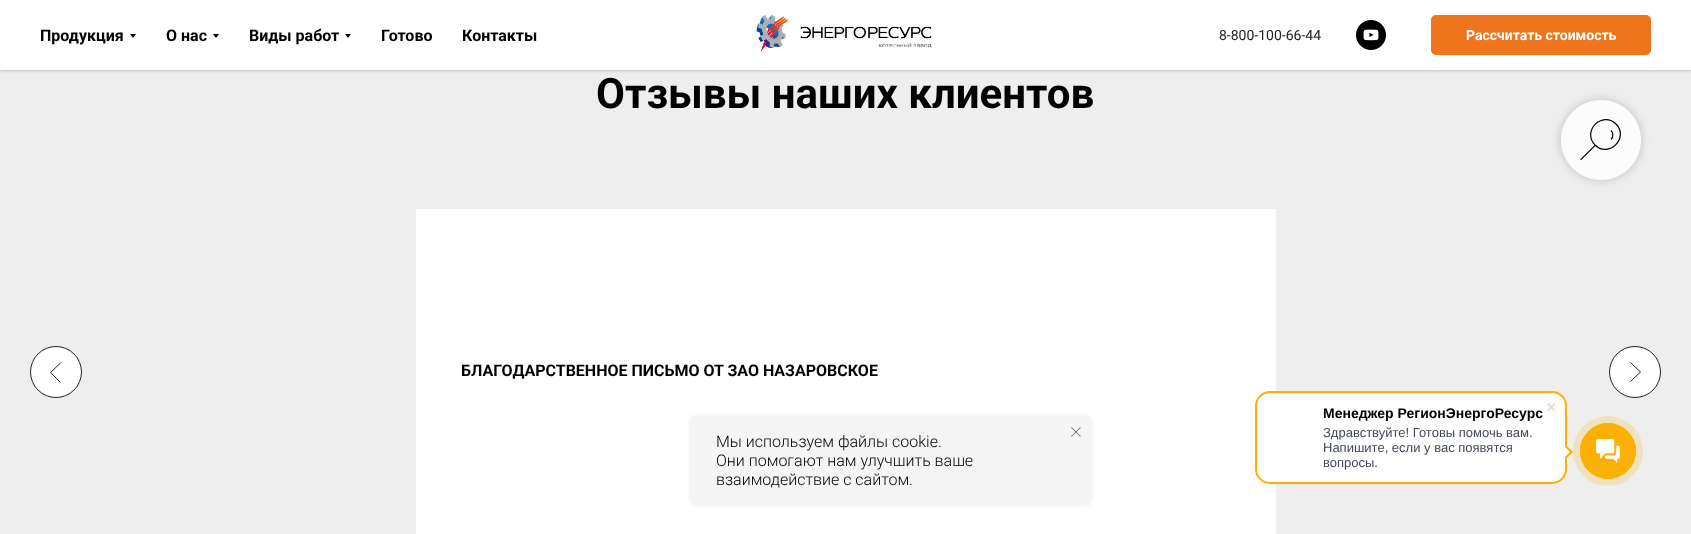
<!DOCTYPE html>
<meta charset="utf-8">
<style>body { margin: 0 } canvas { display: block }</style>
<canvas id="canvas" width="1691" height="534"></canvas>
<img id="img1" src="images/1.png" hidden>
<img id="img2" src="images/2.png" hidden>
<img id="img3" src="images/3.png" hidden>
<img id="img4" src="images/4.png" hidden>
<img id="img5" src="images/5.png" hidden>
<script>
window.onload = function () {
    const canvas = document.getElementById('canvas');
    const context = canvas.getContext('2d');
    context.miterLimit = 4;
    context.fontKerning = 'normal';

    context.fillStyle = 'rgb(238, 238, 238)';
    context.fillRect(0, 0, 1691, 534);
    context.fillStyle = 'rgba(0, 0, 0, 0.2)';
    context.filter = 'blur(1.5px)';
    context.beginPath();
    context.rect(0, 1, 1691, 70);
    context.fill();
    context.filter = 'none';
    context.fillStyle = 'rgb(255, 255, 255)';
    context.fillRect(0, 0, 1691, 70);
    context.fillStyle = 'rgb(0, 0, 0)';
    context.beginPath();
    context.moveTo(130, 34);
    context.lineTo(136, 34);
    context.lineTo(133, 38);
    context.closePath();
    context.fill();
    context.beginPath();
    context.moveTo(213, 34);
    context.lineTo(219, 34);
    context.lineTo(216, 38);
    context.closePath();
    context.fill();
    context.beginPath();
    context.moveTo(345, 34);
    context.lineTo(351, 34);
    context.lineTo(348, 38);
    context.closePath();
    context.fill();
    context.drawImage(document.getElementById('img1'), 756, 15, 176, 37);
    context.drawImage(document.getElementById('img2'), 1356, 20, 30, 30);
    context.fillStyle = 'rgb(238, 117, 29)';
    context.beginPath();
    context.roundRect(1432.5, 16.5, 217, 37, 3.5);
    context.fill();
    context.strokeStyle = 'rgb(238, 117, 29)';
    context.lineWidth = 3;
    context.stroke();
    context.save();
    context.beginPath();
    context.moveTo(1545, 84);
    context.lineTo(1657, 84);
    context.lineTo(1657, 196);
    context.lineTo(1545, 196);
    context.closePath();
    context.moveTo(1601, 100);
    context.bezierCurveTo(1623, 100, 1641, 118, 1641, 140);
    context.bezierCurveTo(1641, 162, 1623, 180, 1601, 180);
    context.bezierCurveTo(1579, 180, 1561, 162, 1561, 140);
    context.bezierCurveTo(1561, 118, 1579, 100, 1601, 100);
    context.closePath();
    context.clip('evenodd');
    context.fillStyle = 'rgba(0, 0, 0, 0.2)';
    context.filter = 'blur(5px)';
    context.beginPath();
    context.roundRect(1561, 100, 80, 80, 40);
    context.fill();
    context.filter = 'none';
    context.restore();
    context.fillStyle = 'rgba(255, 255, 255, 0.8)';
    context.beginPath();
    context.arc(1601, 140, 40, 0, 2 * Math.PI);
    context.fill();
    context.beginPath();
    context.moveTo(1581, 159.5);
    context.lineTo(1595, 145.5);
    context.strokeStyle = 'rgb(0, 0, 0)';
    context.lineWidth = 1.2;
    context.lineCap = 'square';
    context.stroke();
    context.beginPath();
    context.moveTo(1616, 124);
    context.bezierCurveTo(1629.5, 137.5, 1609, 158.5, 1595, 145);
    context.bezierCurveTo(1581.5, 131, 1602.5, 110.5, 1616, 124);
    context.closePath();
    context.moveTo(1611, 130.5);
    context.bezierCurveTo(1613.5, 133, 1613.5, 137, 1611, 139.5);
    context.lineCap = 'butt';
    context.stroke();
    context.fillStyle = 'rgb(255, 255, 255)';
    context.beginPath();
    context.arc(56, 372, 25.5, 0, 2 * Math.PI);
    context.fill();
    context.strokeStyle = 'rgb(34, 34, 34)';
    context.lineWidth = 1;
    context.stroke();
    context.beginPath();
    context.moveTo(60.5, 382.5);
    context.lineTo(50.5, 372.5);
    context.lineTo(60.5, 363);
    context.stroke();
    context.beginPath();
    context.arc(1635, 372, 25.5, 0, 2 * Math.PI);
    context.fill();
    context.stroke();
    context.beginPath();
    context.moveTo(1630.5, 362.5);
    context.lineTo(1640.5, 372);
    context.lineTo(1630.5, 381.5);
    context.stroke();
    context.fillRect(416, 209, 860, 325);
    context.fillStyle = 'rgba(0, 0, 0, 0.1)';
    context.filter = 'blur(2.5px)';
    context.beginPath();
    context.roundRect(691, 417, 400, 87, 5);
    context.fill();
    context.filter = 'none';
    context.fillStyle = 'rgb(245, 245, 245)';
    context.beginPath();
    context.roundRect(691, 417, 400, 87, 5);
    context.fill();
    context.drawImage(document.getElementById('img3'), 1071, 427, 10, 10);
    context.fillStyle = 'rgb(255, 255, 255)';
    context.beginPath();
    context.roundRect(1256, 392, 310, 91, 14);
    context.fill();
    context.strokeStyle = 'rgb(251, 177, 4)';
    context.lineWidth = 2;
    context.stroke();
    context.drawImage(document.getElementById('img4'), 1547, 403, 8, 8);
    context.beginPath();
    context.moveTo(1559, 452);
    context.lineTo(1566, 445);
    context.lineTo(1573, 452);
    context.lineTo(1566, 459);
    context.closePath();
    context.fill();
    context.fillStyle = 'rgb(251, 177, 4)';
    context.beginPath();
    context.moveTo(1564.5, 446.5);
    context.lineTo(1566, 445);
    context.lineTo(1573, 452);
    context.lineTo(1571.5, 453.5);
    context.closePath();
    context.fill();
    context.beginPath();
    context.moveTo(1564.5, 457.5);
    context.lineTo(1571.5, 450.5);
    context.lineTo(1573, 452);
    context.lineTo(1566, 459);
    context.closePath();
    context.fill();
    context.fillStyle = 'rgb(241, 226, 191)';
    context.beginPath();
    context.arc(1608, 451, 35, 0, 2 * Math.PI);
    context.fill();
    context.beginPath();
    context.arc(1608, 451, 27.6, 0, 2 * Math.PI);
    context.lineWidth = 0.8;
    context.stroke();
    context.fillStyle = 'rgb(251, 177, 4)';
    context.beginPath();
    context.arc(1608, 451, 28, 0, 2 * Math.PI);
    context.fill();
    context.drawImage(document.getElementById('img5'), 1596, 439, 24, 24);
    context.font = 'bold 16px Roboto';
    context.fillStyle = 'rgb(0, 0, 0)';
    context.fillText('Продукция', 40, 41);
    context.fillText('О нас', 166, 41);
    context.fillText('Виды работ', 249, 41);
    context.fillText('Готово', 381, 41);
    context.fillText('Контакты', 462, 41);
    context.font = '14px Roboto';
    context.fillStyle = 'rgb(33, 33, 33)';
    context.fillText('8-800-100-66-44', 1219, 40);
    context.font = 'bold 14px Roboto';
    context.fillStyle = 'rgb(255, 255, 255)';
    context.fillText('Рассчитать стоимость', 1466, 40);
    context.font = 'bold 42px Roboto';
    context.fillStyle = 'rgb(0, 0, 0)';
    context.fillText('Отзывы наших клиентов', 596, 108);
    context.font = 'bold 16px Roboto';
    context.fillText('БЛАГОДАРСТВЕННОЕ ПИСЬМО ОТ ЗАО НАЗАРОВСКОЕ', 461, 376);
    context.font = '300 16px Roboto';
    context.fillText('Мы используем файлы cookie.', 716, 447);
    context.fillText('Они помогают нам улучшить ваше', 716, 466);
    context.fillText('взаимодействие с сайтом.', 716, 485);
    context.font = 'bold 14px Liberation Sans';
    context.fillText('Менеджер РегионЭнергоРесурс', 1323, 418);
    context.font = '13px Liberation Sans';
    context.fillStyle = 'rgb(66, 73, 86)';
    context.fillText('Здравствуйте! Готовы помочь вам.', 1323, 437);
    context.fillText('Напишите, если у вас появятся', 1323, 452);
    context.fillText('вопросы.', 1323, 467);
};
</script>
